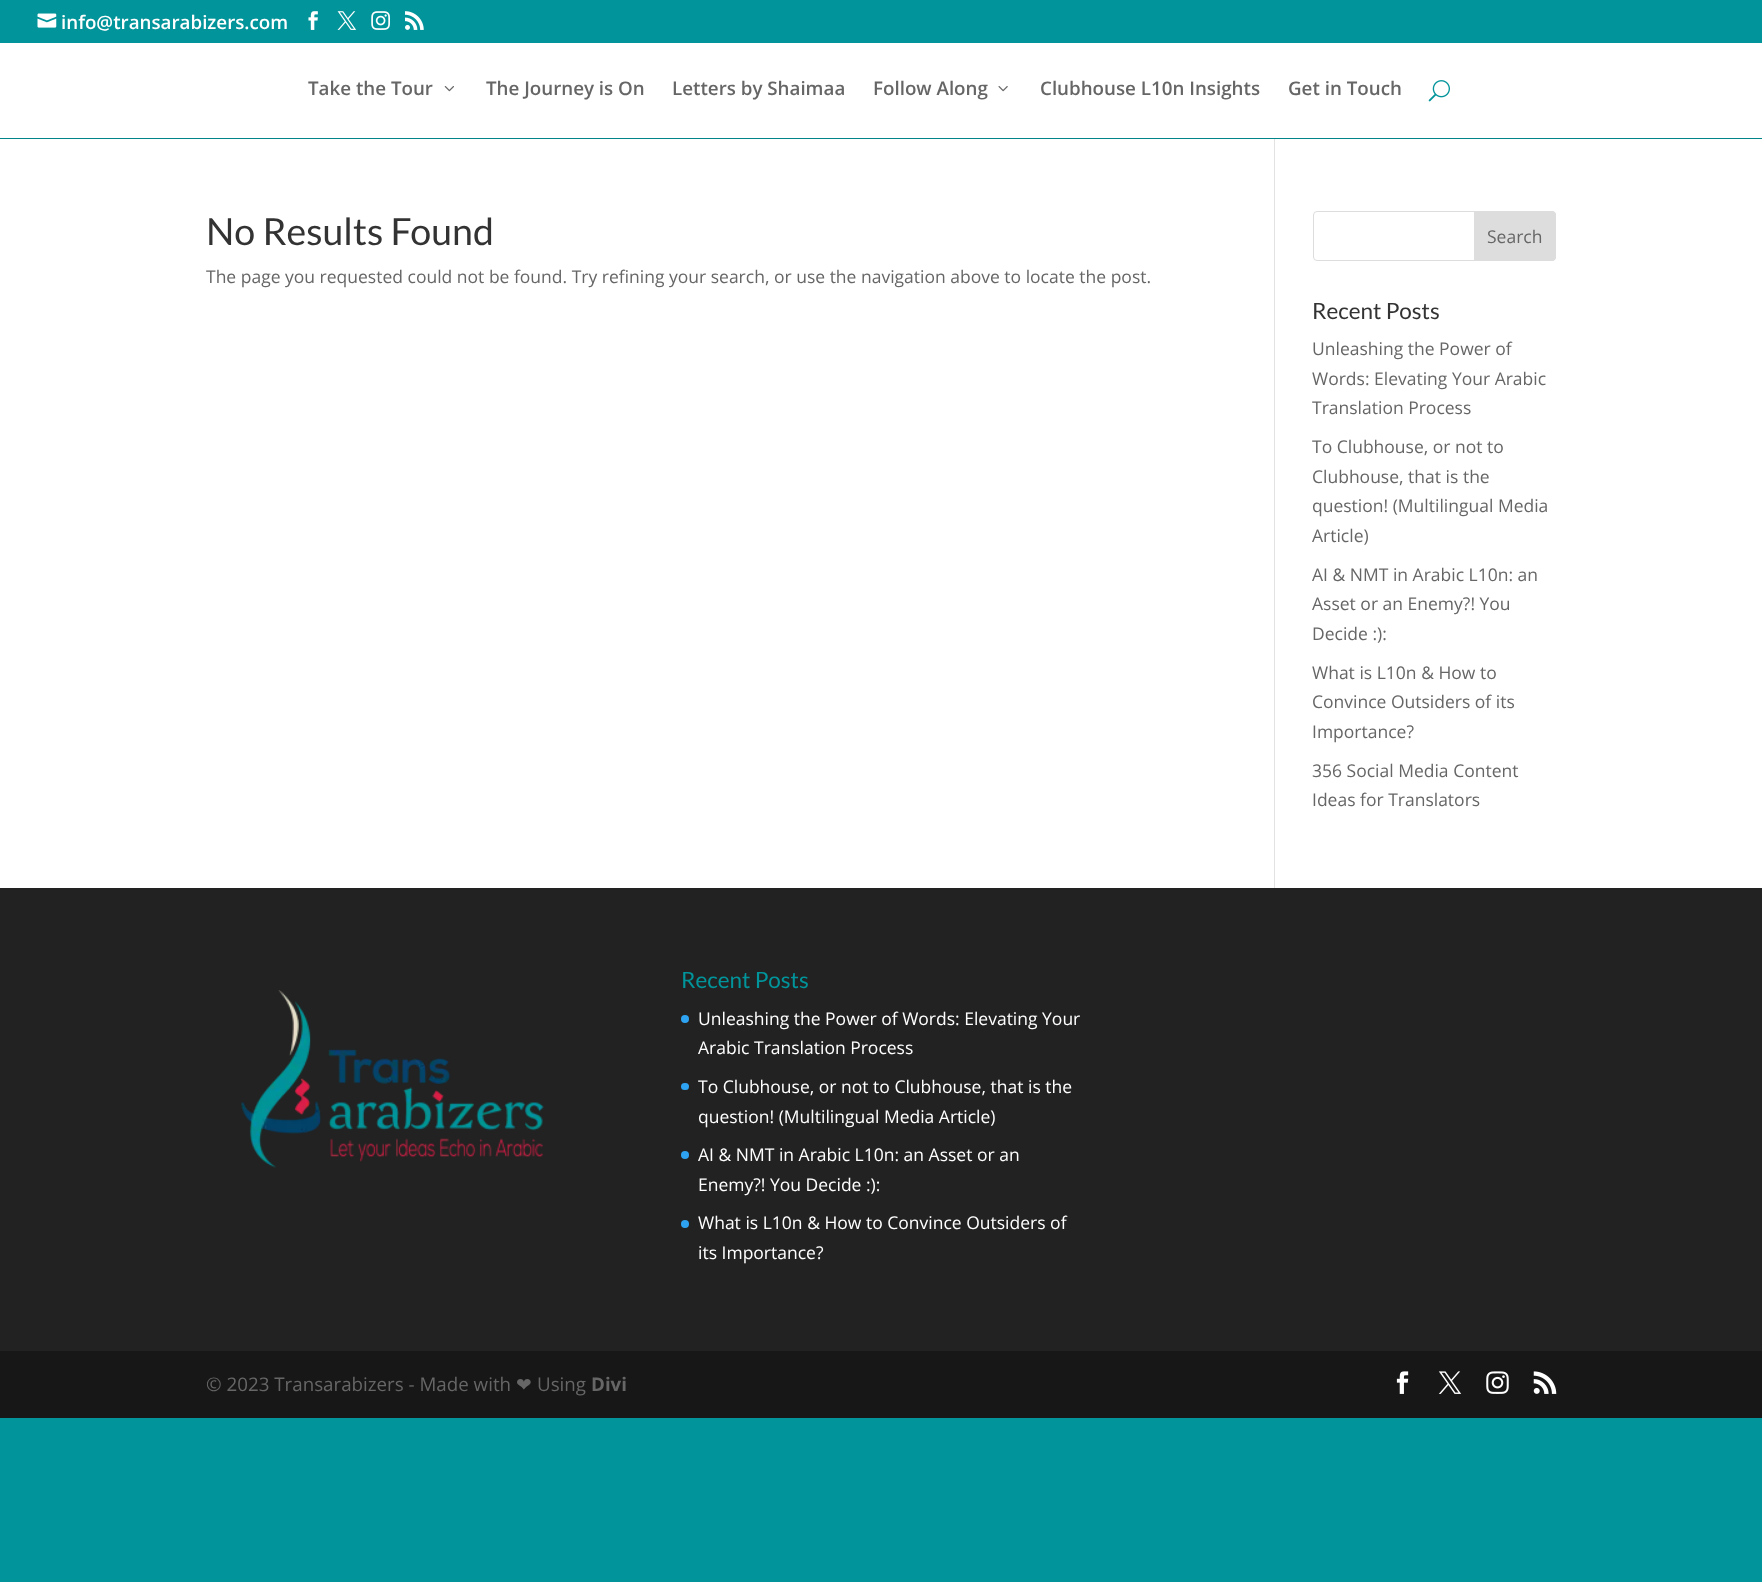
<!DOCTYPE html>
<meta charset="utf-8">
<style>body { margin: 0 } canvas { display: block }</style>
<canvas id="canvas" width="1762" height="1582"></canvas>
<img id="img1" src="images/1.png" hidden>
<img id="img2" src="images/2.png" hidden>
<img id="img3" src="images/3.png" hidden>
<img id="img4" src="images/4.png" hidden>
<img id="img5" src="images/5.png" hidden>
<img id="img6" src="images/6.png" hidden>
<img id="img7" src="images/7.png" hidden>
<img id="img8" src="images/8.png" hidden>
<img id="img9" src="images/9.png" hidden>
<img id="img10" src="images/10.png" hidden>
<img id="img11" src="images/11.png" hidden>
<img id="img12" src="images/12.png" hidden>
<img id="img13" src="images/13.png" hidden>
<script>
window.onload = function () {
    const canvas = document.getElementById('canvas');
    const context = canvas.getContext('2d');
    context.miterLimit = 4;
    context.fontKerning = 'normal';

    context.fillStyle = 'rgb(1, 148, 154)';
    context.fillRect(0, 0, 1762, 1582);
    context.drawImage(document.getElementById('img1'), 37, 13, 20, 15);
    context.drawImage(document.getElementById('img2'), 308, 11, 10, 19);
    context.drawImage(document.getElementById('img3'), 337, 11, 20, 19);
    context.drawImage(document.getElementById('img4'), 371, 11, 19, 19);
    context.drawImage(document.getElementById('img5'), 405, 11, 19, 19);
    context.fillStyle = 'rgb(1, 133, 139)';
    context.beginPath();
    context.moveTo(0, 138);
    context.lineTo(0, 139);
    context.lineTo(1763, 139);
    context.lineTo(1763, 39);
    context.lineTo(1762, 39);
    context.lineTo(1762, 138);
    context.closePath();
    context.fill();
    context.fillStyle = 'rgb(255, 255, 255)';
    context.fillRect(0, 43, 1762, 95);
    context.drawImage(document.getElementById('img6'), 444, 86, 10, 6);
    context.drawImage(document.getElementById('img7'), 998, 86, 10, 6);
    context.drawImage(document.getElementById('img8'), 1428, 80, 22, 22);
    context.fillRect(0, 139, 1762, 749);
    context.fillStyle = 'rgb(226, 226, 226)';
    context.fillRect(1274, 139, 1, 749);
    context.beginPath();
    context.roundRect(1313.5, 211.5, 242, 49, 3.5);
    context.strokeStyle = 'rgb(221, 221, 221)';
    context.stroke();
    context.fillStyle = 'rgb(221, 221, 221)';
    context.beginPath();
    context.roundRect(1474.5, 211.5, 81, 49, [0, 3.5, 3.5, 0]);
    context.fill();
    context.stroke();
    context.fillStyle = 'rgb(34, 34, 34)';
    context.fillRect(0, 888, 1762, 463);
    context.drawImage(document.getElementById('img9'), 241, 990, 303, 178);
    context.fillStyle = 'rgb(46, 163, 242)';
    context.beginPath();
    context.arc(685, 1019, 4, 0, 2 * Math.PI);
    context.fill();
    context.beginPath();
    context.roundRect(681, 1083, 8, 7, 3.5);
    context.fill();
    context.beginPath();
    context.arc(685, 1155, 4, 0, 2 * Math.PI);
    context.fill();
    context.beginPath();
    context.arc(685, 1224, 4, 0, 2 * Math.PI);
    context.fill();
    context.fillStyle = 'rgb(23, 23, 23)';
    context.fillRect(0, 1351, 1762, 67);
    context.drawImage(document.getElementById('img10'), 1396, 1371, 13, 23);
    context.drawImage(document.getElementById('img11'), 1438, 1371, 24, 23);
    context.drawImage(document.getElementById('img12'), 1486, 1371, 23, 23);
    context.drawImage(document.getElementById('img13'), 1533, 1371, 24, 23);
    context.font = '600 18.75px Open Sans';
    context.fillStyle = 'rgb(255, 255, 255)';
    context.fillText('info@transarabizers.com', 61, 29);
    context.fillStyle = 'rgb(102, 102, 102)';
    context.fillText('Take the Tour', 308, 95);
    context.fillText('The Journey is On', 486, 95);
    context.fillText('Letters by Shaimaa', 672, 95);
    context.fillText('Follow Along', 873, 95);
    context.fillText('Clubhouse L10n Insights', 1040, 95);
    context.fillText('Get in Touch', 1288, 95);
    context.font = '37.5px Lato';
    context.fillStyle = 'rgb(51, 51, 51)';
    context.fillText('No Results Found', 206, 245);
    context.font = '17.5px Open Sans';
    context.fillStyle = 'rgb(102, 102, 102)';
    context.fillText('The page you requested could not be found. Try refining your search, or use the navigation above to locate the post.', 206, 283);
    context.fillText('Search', 1487, 243);
    context.font = '22.5px Lato';
    context.fillStyle = 'rgb(51, 51, 51)';
    context.fillText('Recent Posts', 1312, 319);
    context.font = '17.5px Open Sans';
    context.fillStyle = 'rgb(102, 102, 102)';
    context.fillText('Unleashing the Power of', 1312, 355);
    context.fillText('Words: Elevating Your Arabic', 1312, 385);
    context.fillText('Translation Process', 1312, 414);
    context.fillText('To Clubhouse, or not to', 1312, 453);
    context.fillText('Clubhouse, that is the', 1312, 483);
    context.fillText('question! (Multilingual Media', 1312, 512);
    context.fillText('Article)', 1312, 542);
    context.fillText('AI & NMT in Arabic L10n: an', 1312, 581);
    context.fillText('Asset or an Enemy?! You', 1312, 610);
    context.fillText('Decide :):', 1312, 640);
    context.fillText('What is L10n & How to', 1312, 679);
    context.fillText('Convince Outsiders of its', 1312, 708);
    context.fillText('Importance?', 1312, 738);
    context.fillText('356 Social Media Content', 1312, 777);
    context.fillText('Ideas for Translators', 1312, 806);
    context.font = '22.5px Lato';
    context.fillStyle = 'rgb(1, 148, 154)';
    context.fillText('Recent Posts', 681, 988);
    context.font = '17.5px Open Sans';
    context.fillStyle = 'rgb(255, 255, 255)';
    context.fillText('Unleashing the Power of Words: Elevating Your', 698, 1025);
    context.fillText('Arabic Translation Process', 698, 1054);
    context.fillText('To Clubhouse, or not to Clubhouse, that is the', 698, 1093);
    context.fillText('question! (Multilingual Media Article)', 698, 1123);
    context.fillText('AI & NMT in Arabic L10n: an Asset or an', 698, 1161);
    context.fillText('Enemy?! You Decide :):', 698, 1191);
    context.fillText('What is L10n & How to Convince Outsiders of', 698, 1229);
    context.fillText('its Importance?', 698, 1259);
    context.font = '18.75px Open Sans';
    context.fillStyle = 'rgb(102, 102, 102)';
    context.fillText('© 2023 Transarabizers - Made with', 206, 1391);
    context.font = '18.75px DejaVu Sans';
    context.fillText('❤', 516, 1391);
    context.font = '18.75px Open Sans';
    context.fillText('Using', 537, 1391);
    context.font = 'bold 18.75px Open Sans';
    context.fillText('Divi', 591, 1391);
};
</script>
